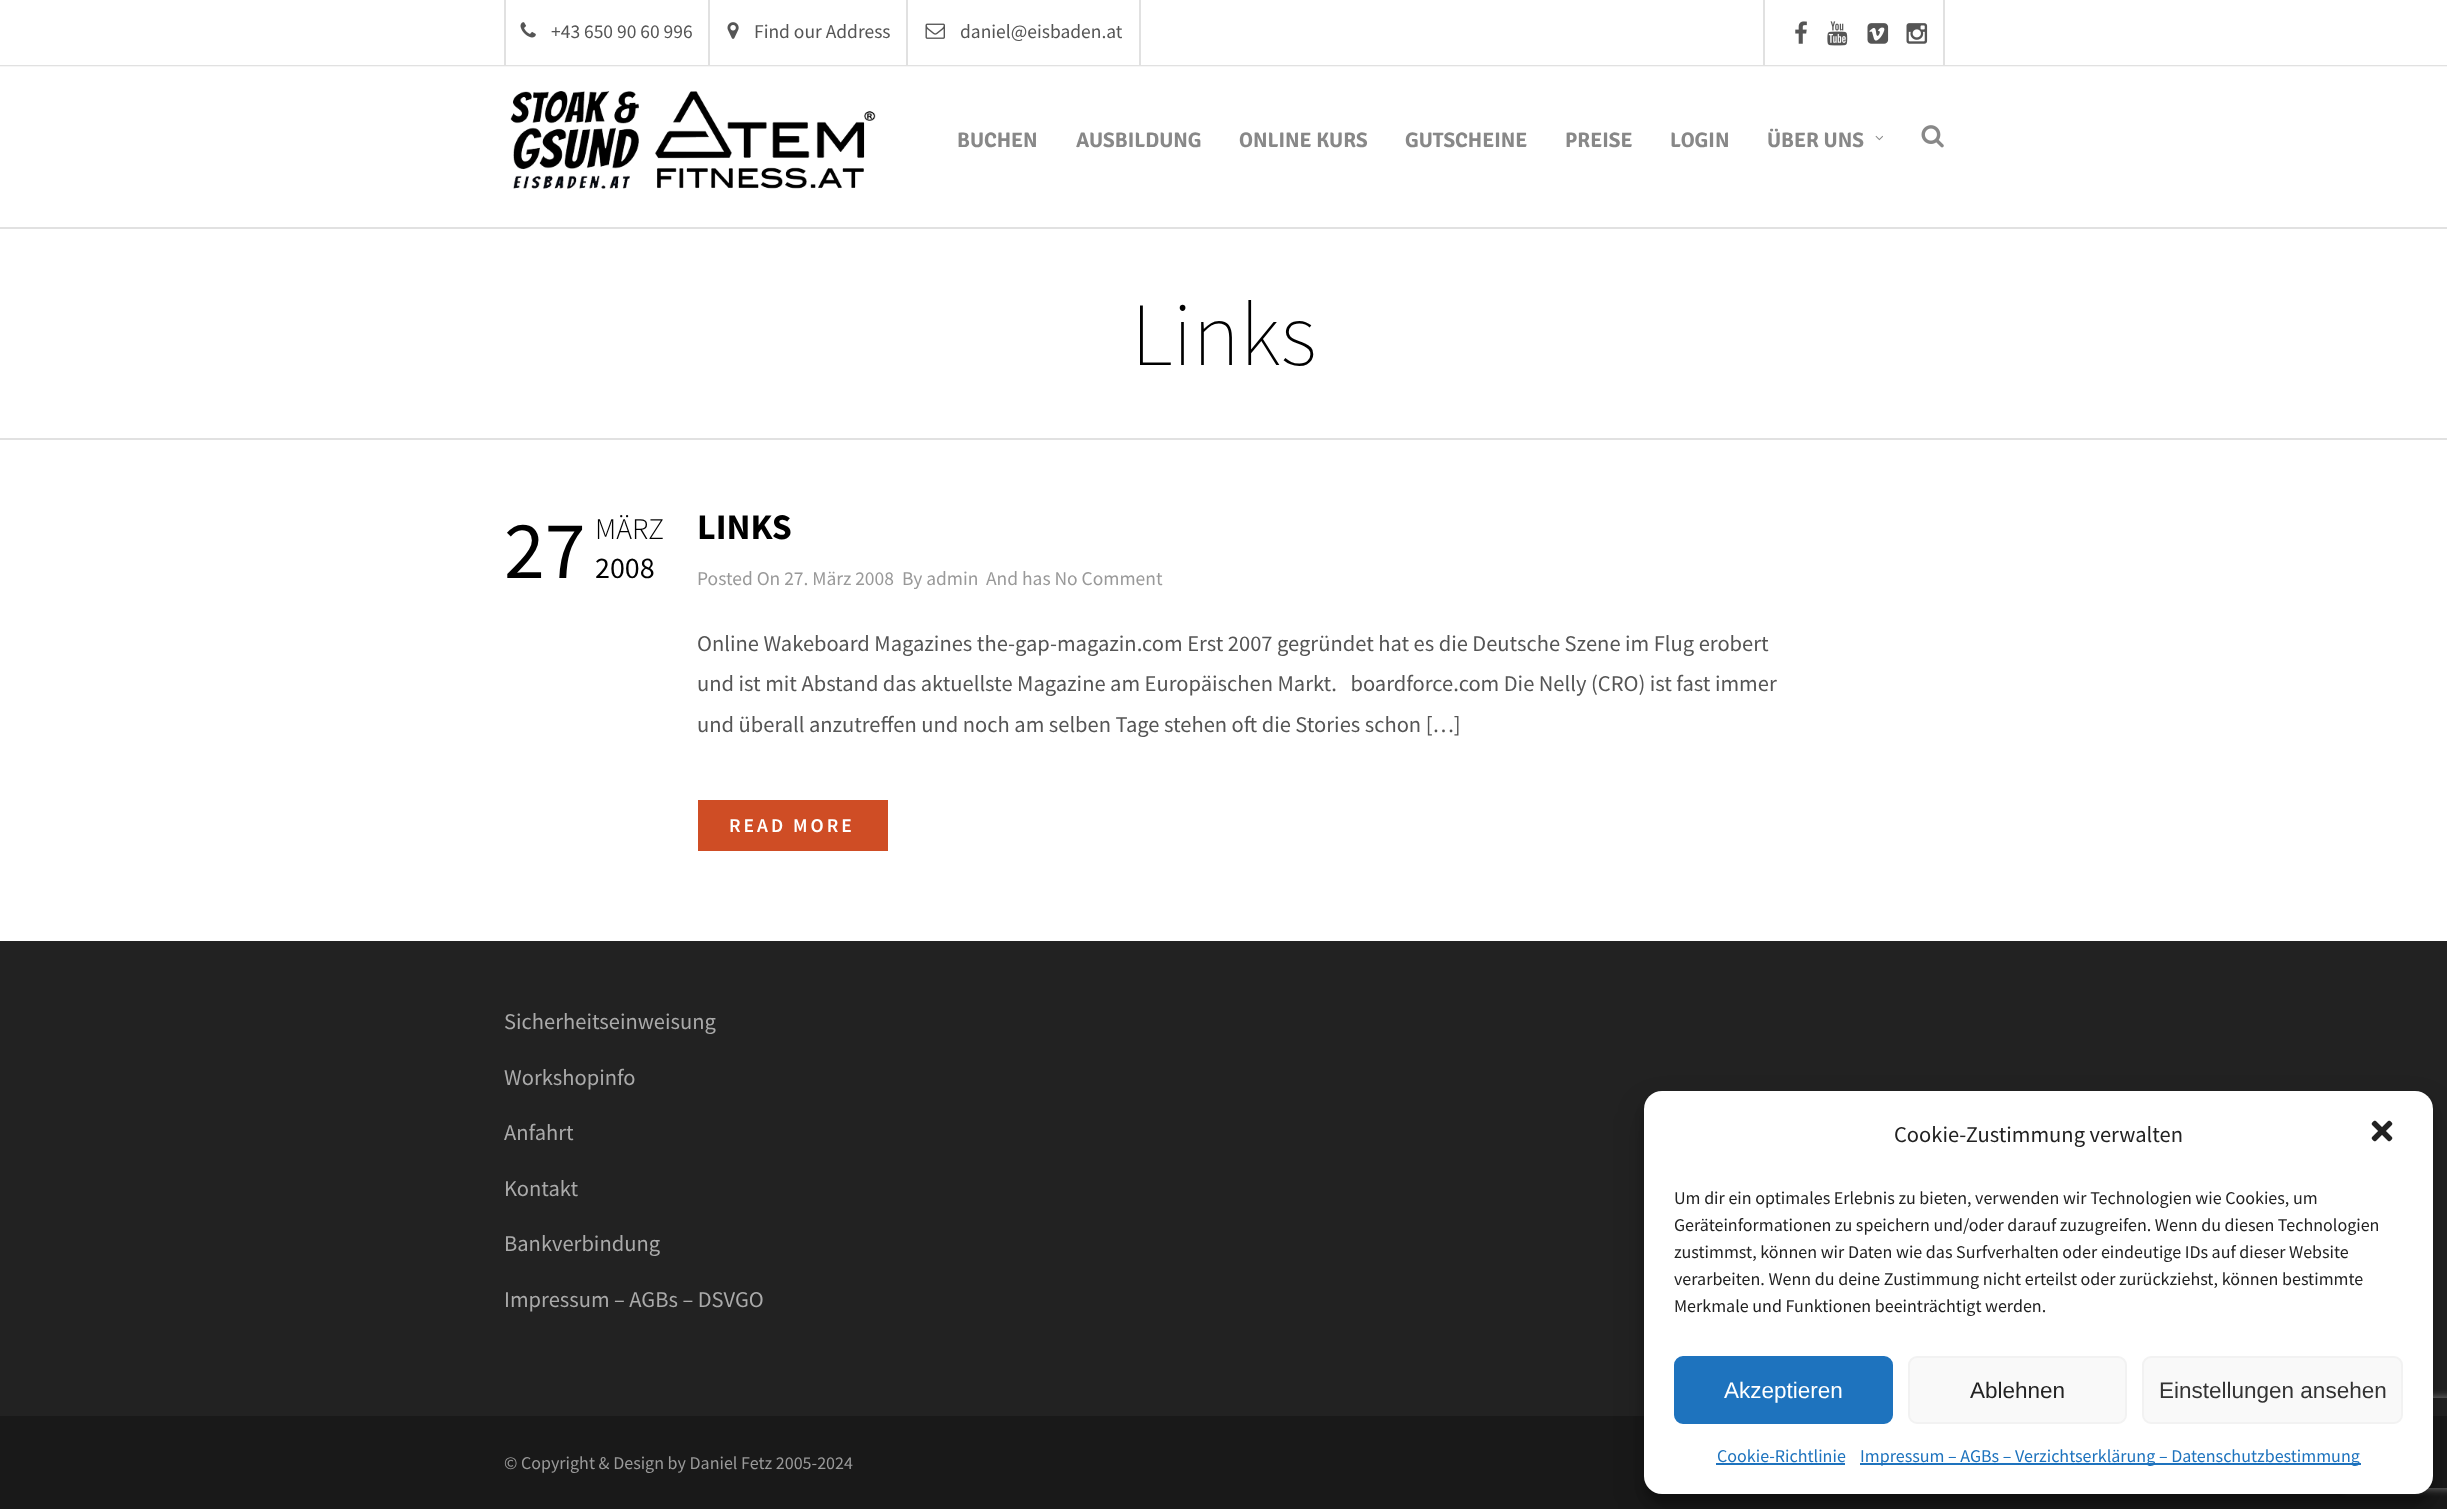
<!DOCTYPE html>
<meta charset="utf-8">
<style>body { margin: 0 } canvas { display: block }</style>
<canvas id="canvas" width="2447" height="1509"></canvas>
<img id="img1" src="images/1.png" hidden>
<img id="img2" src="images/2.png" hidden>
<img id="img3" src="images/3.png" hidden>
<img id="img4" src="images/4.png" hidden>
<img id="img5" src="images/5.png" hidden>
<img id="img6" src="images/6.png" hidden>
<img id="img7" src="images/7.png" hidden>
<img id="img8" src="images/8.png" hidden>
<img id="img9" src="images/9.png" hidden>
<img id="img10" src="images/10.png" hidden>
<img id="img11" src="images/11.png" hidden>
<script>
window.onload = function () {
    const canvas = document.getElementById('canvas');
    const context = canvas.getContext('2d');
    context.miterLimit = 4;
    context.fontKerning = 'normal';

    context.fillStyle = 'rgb(255, 255, 255)';
    context.fillRect(0, 0, 2447, 1509);
    context.fillStyle = 'rgb(225, 225, 225)';
    context.fillRect(0, 65, 2447, 1);
    context.fillStyle = 'rgb(246, 246, 246)';
    context.fillRect(0, 66, 2447, 1);
    context.fillStyle = 'rgb(225, 225, 225)';
    context.fillRect(504, 0, 2, 65);
    context.fillRect(708, 0, 2, 65);
    context.drawImage(document.getElementById('img1'), 520, 22, 16, 16);
    context.fillRect(906, 0, 2, 65);
    context.drawImage(document.getElementById('img2'), 727, 22, 12, 17);
    context.fillRect(1139, 0, 2, 65);
    context.drawImage(document.getElementById('img3'), 925, 23, 20, 16);
    context.fillRect(1943, 0, 2, 66);
    context.fillRect(1763, 0, 2, 66);
    context.drawImage(document.getElementById('img4'), 1795, 21, 12, 23);
    context.drawImage(document.getElementById('img5'), 1827, 21, 21, 25);
    context.drawImage(document.getElementById('img6'), 1867, 23, 22, 21);
    context.drawImage(document.getElementById('img7'), 1906, 23, 22, 21);
    context.fillRect(0, 227, 2447, 2);
    context.drawImage(document.getElementById('img8'), 510, 91, 366, 98);
    context.drawImage(document.getElementById('img9'), 1875, 135, 8, 6);
    context.drawImage(document.getElementById('img10'), 1921, 125, 23, 23);
    context.fillRect(0, 438, 2447, 2);
    context.fillStyle = 'rgb(207, 77, 37)';
    context.fillRect(698, 800, 190, 51);
    context.fillStyle = 'rgb(25, 25, 25)';
    context.fillRect(0, 1416, 2447, 93);
    context.fillStyle = 'rgb(34, 34, 34)';
    context.fillRect(0, 941, 2447, 475);
    context.fillStyle = 'rgba(0, 0, 0, 0.23)';
    context.filter = 'blur(4.5px)';
    context.beginPath();
    context.roundRect(1644, 1100, 789, 403, 18);
    context.fill();
    context.filter = 'none';
    context.fillStyle = 'rgba(0, 0, 0, 0.19)';
    context.filter = 'blur(15px)';
    context.beginPath();
    context.roundRect(1644, 1106, 789, 403, 18);
    context.fill();
    context.filter = 'none';
    context.save();
    context.beginPath();
    context.moveTo(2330, 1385);
    context.lineTo(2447, 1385);
    context.lineTo(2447, 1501);
    context.lineTo(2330, 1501);
    context.closePath();
    context.moveTo(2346, 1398);
    context.lineTo(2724, 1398);
    context.bezierCurveTo(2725.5, 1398, 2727, 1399.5, 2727, 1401);
    context.lineTo(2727, 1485);
    context.bezierCurveTo(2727, 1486.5, 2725.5, 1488, 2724, 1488);
    context.lineTo(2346, 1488);
    context.bezierCurveTo(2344.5, 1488, 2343, 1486.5, 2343, 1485);
    context.lineTo(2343, 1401);
    context.bezierCurveTo(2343, 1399.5, 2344.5, 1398, 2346, 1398);
    context.closePath();
    context.clip('evenodd');
    context.fillStyle = 'rgb(128, 128, 128)';
    context.filter = 'blur(4px)';
    context.beginPath();
    context.roundRect(2343, 1398, 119, 90, 3);
    context.fill();
    context.filter = 'none';
    context.restore();
    context.fillStyle = 'rgb(255, 255, 255)';
    context.beginPath();
    context.roundRect(1644, 1091, 789, 403, 18);
    context.fill();
    context.drawImage(document.getElementById('img11'), 2371, 1120, 22, 22);
    context.fillStyle = 'rgb(30, 115, 190)';
    context.beginPath();
    context.roundRect(1675, 1357, 217, 66, 8);
    context.fill();
    context.strokeStyle = 'rgb(30, 115, 190)';
    context.lineWidth = 2;
    context.stroke();
    context.fillStyle = 'rgb(249, 249, 249)';
    context.beginPath();
    context.roundRect(1909, 1357, 217, 66, 8);
    context.fill();
    context.strokeStyle = 'rgb(242, 242, 242)';
    context.stroke();
    context.beginPath();
    context.roundRect(2143, 1357, 259, 66, 8);
    context.fill();
    context.stroke();
    context.fillStyle = 'rgb(30, 115, 190)';
    context.fillRect(1716, 1463, 129, 2);
    context.fillRect(1860, 1463, 501, 2);
    context.font = '19.5px Source Sans Pro';
    context.fillStyle = 'rgb(85, 85, 85)';
    context.fillText('+43 650 90 60 996', 551, 38);
    context.fillText('Find our Address', 754, 38);
    context.fillText('daniel@eisbaden.at', 960, 38);
    context.font = 'bold 21px Signika Negative';
    context.fillStyle = 'rgb(136, 136, 136)';
    context.fillText('BUCHEN', 957, 147);
    context.fillText('AUSBILDUNG', 1076, 147);
    context.fillText('ONLINE KURS', 1239, 147);
    context.fillText('GUTSCHEINE', 1405, 147);
    context.fillText('PREISE', 1565, 147);
    context.fillText('LOGIN', 1670, 147);
    context.fillText('ÜBER UNS', 1767, 147);
    context.font = '200 90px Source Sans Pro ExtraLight';
    context.fillStyle = 'rgb(0, 0, 0)';
    context.fillText('Links', 1131, 365);
    context.font = '82px Source Sans Pro';
    context.fillText('27', 504, 578);
    context.font = '300 30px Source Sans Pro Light';
    context.fillText('MÄRZ', 595, 539);
    context.font = '30px Source Sans Pro';
    context.fillText('2008', 595, 578);
    context.font = 'bold 36px Source Sans Pro';
    context.fillText('LINKS', 697, 539);
    context.font = '19.5px Source Sans Pro';
    context.fillStyle = 'rgb(153, 153, 153)';
    context.fillText('Posted On 27. März 2008', 697, 585);
    context.fillText('By admin', 902, 585);
    context.fillText('And has No Comment', 986, 585);
    context.font = '22.5px Source Sans Pro';
    context.fillStyle = 'rgb(85, 85, 85)';
    context.fillText('Online Wakeboard Magazines the-gap-magazin.com Erst 2007 gegründet hat es die Deutsche Szene im Flug erobert', 697, 651);
    context.fillText('und ist mit Abstand das aktuellste Magazine am Europäischen Markt.   boardforce.com Die Nelly (CRO) ist fast immer', 697, 691);
    context.fillText('und überall anzutreffen und noch am selben Tage stehen oft die Stories schon […]', 697, 732);
    context.letterSpacing = '3px';
    context.font = '600 19.5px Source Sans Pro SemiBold';
    context.fillStyle = 'rgb(255, 255, 255)';
    context.fillText('READ MORE', 729, 832);
    context.letterSpacing = '0px';
    context.font = '22.5px Source Sans Pro';
    context.fillStyle = 'rgb(170, 170, 170)';
    context.fillText('Sicherheitseinweisung', 504, 1029);
    context.fillText('Workshopinfo', 504, 1085);
    context.fillText('Anfahrt', 504, 1140);
    context.fillText('Kontakt', 504, 1196);
    context.fillText('Bankverbindung', 504, 1251);
    context.fillText('Impressum – AGBs – DSVGO', 504, 1307);
    context.font = '18px Source Sans Pro';
    context.fillStyle = 'rgb(153, 153, 153)';
    context.fillText('© Copyright & Design by Daniel Fetz 2005-2024', 504, 1469);
    context.font = '22.5px Source Sans Pro';
    context.fillStyle = 'rgb(34, 34, 34)';
    context.fillText('Cookie-Zustimmung verwalten', 1894, 1142);
    context.font = '18px Source Sans Pro';
    context.fillText('Um dir ein optimales Erlebnis zu bieten, verwenden wir Technologien wie Cookies, um', 1674, 1204);
    context.fillText('Geräteinformationen zu speichern und/oder darauf zuzugreifen. Wenn du diesen Technologien', 1674, 1231);
    context.fillText('zustimmst, können wir Daten wie das Surfverhalten oder eindeutige IDs auf dieser Website', 1674, 1258);
    context.fillText('verarbeiten. Wenn du deine Zustimmung nicht erteilst oder zurückziehst, können bestimmte', 1674, 1285);
    context.fillText('Merkmale und Funktionen beeinträchtigt werden.', 1674, 1312);
    context.font = '22.5px Liberation Sans';
    context.fillStyle = 'rgb(255, 255, 255)';
    context.fillText('Akzeptieren', 1724, 1398);
    context.fillStyle = 'rgb(34, 34, 34)';
    context.fillText('Ablehnen', 1970, 1398);
    context.fillStyle = 'rgb(51, 51, 51)';
    context.fillText('Einstellungen ansehen', 2159, 1398);
    context.font = '18px Source Sans Pro';
    context.fillStyle = 'rgb(30, 115, 190)';
    context.fillText('Cookie-Richtlinie', 1717, 1462);
    context.fillText('Impressum – AGBs – Verzichtserklärung – Datenschutzbestimmung', 1860, 1462);
};
</script>
